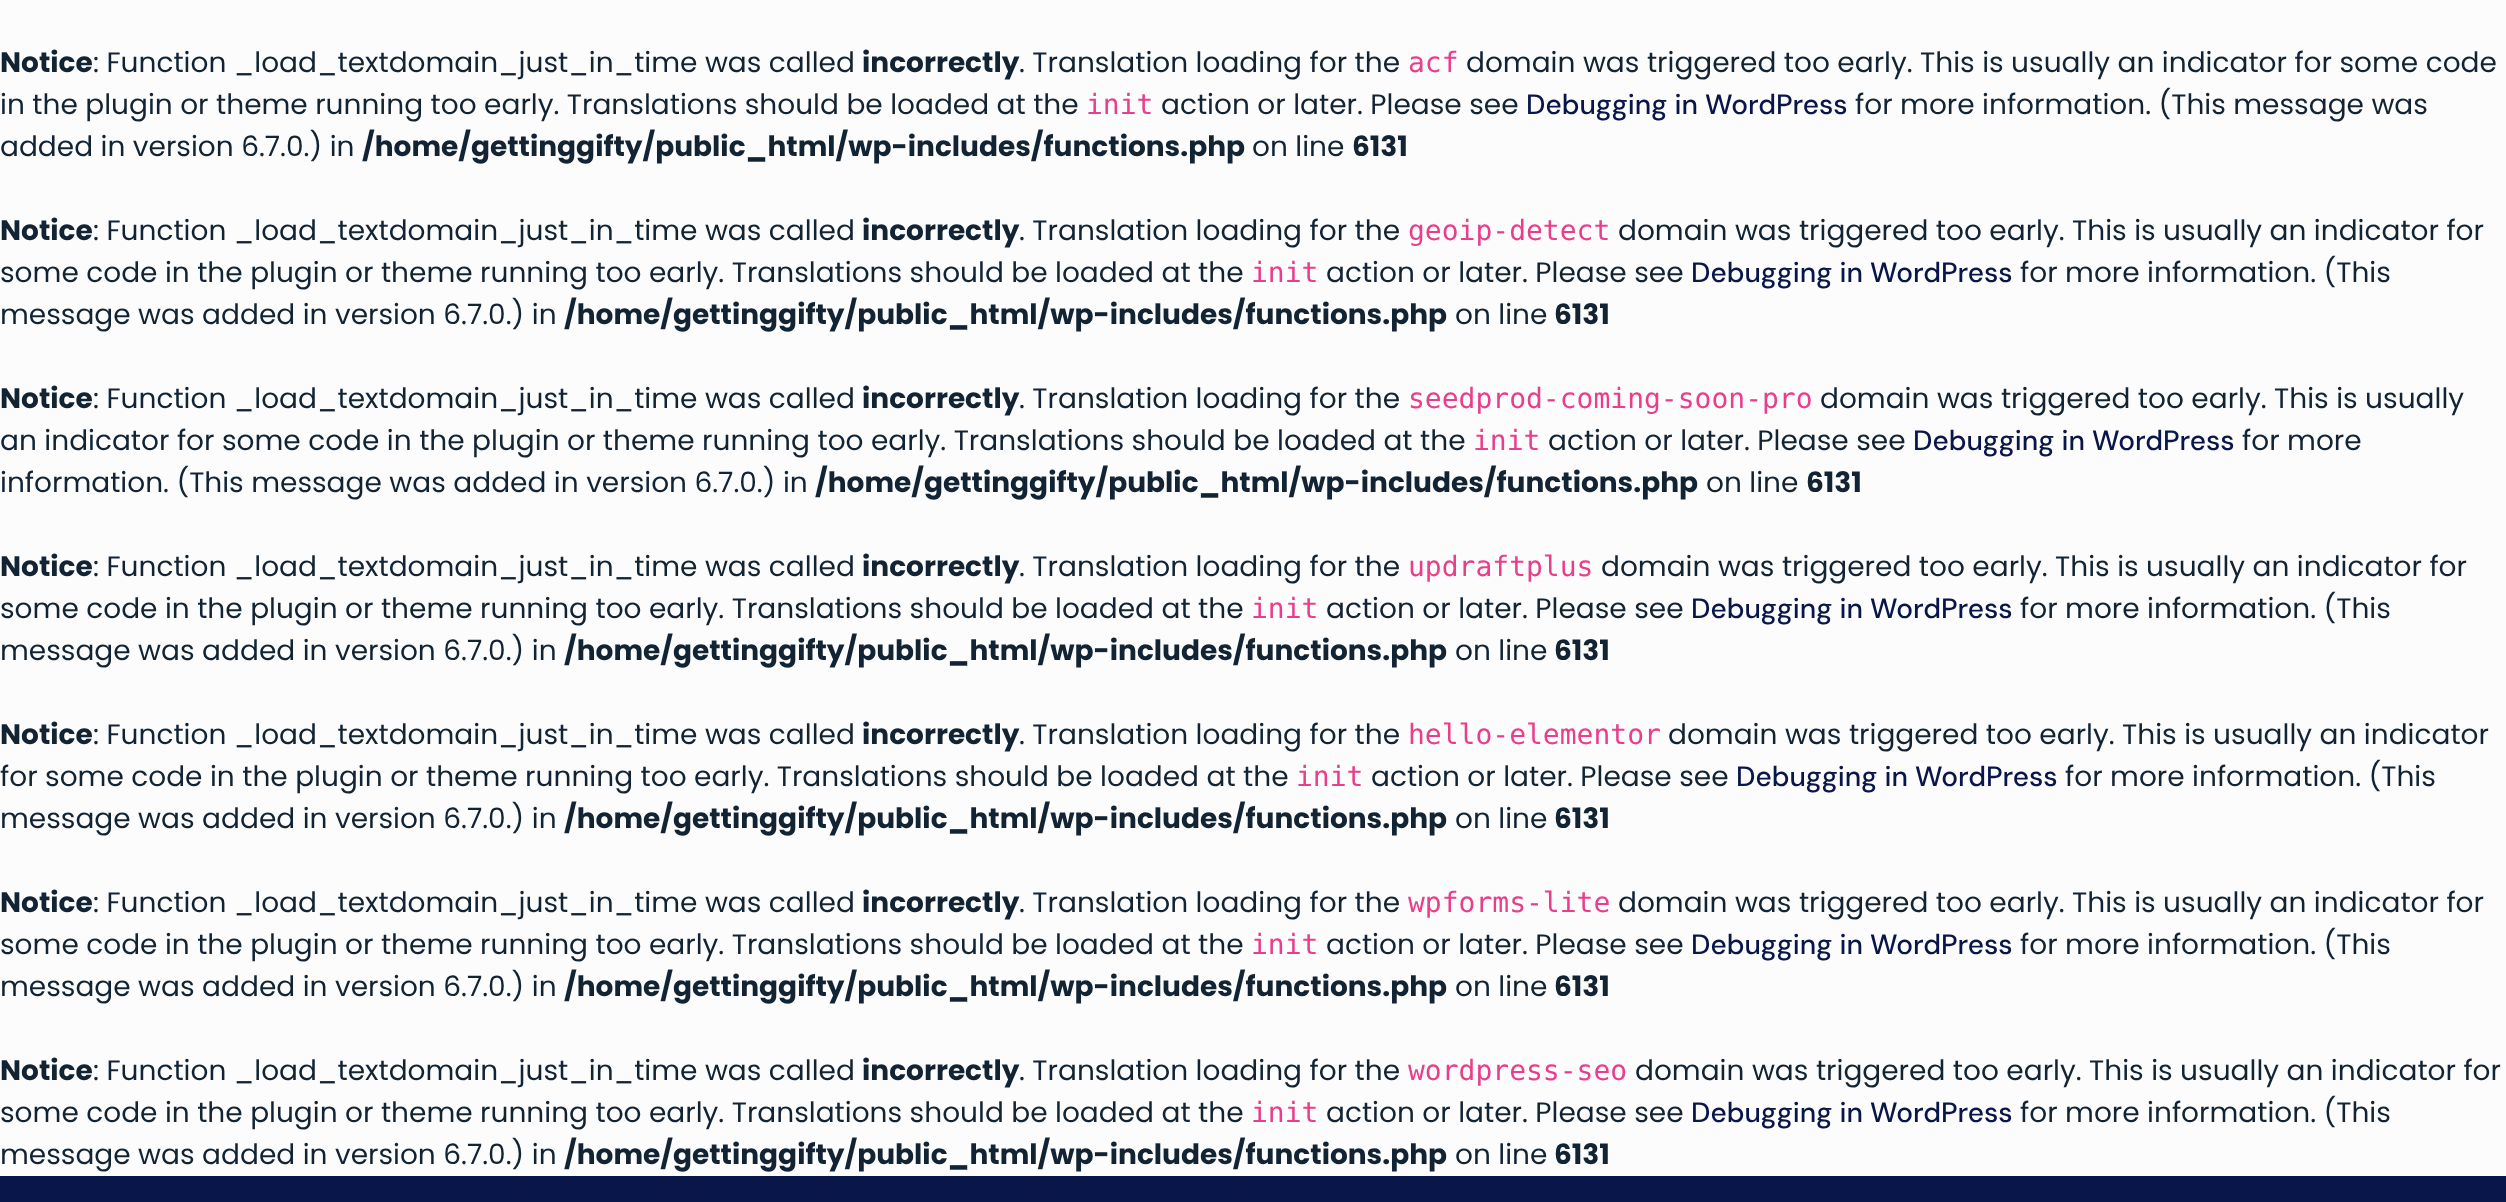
<!DOCTYPE html>
<meta charset="utf-8">
<style>body { margin: 0 } canvas { display: block }</style>
<canvas id="canvas" width="2506" height="1202"></canvas>
<script>
window.onload = function () {
    const canvas = document.getElementById('canvas');
    const context = canvas.getContext('2d');
    context.miterLimit = 4;
    context.fontKerning = 'normal';

    context.fillStyle = 'rgb(252, 252, 252)';
    context.fillRect(0, 0, 2506, 1202);
    context.fillStyle = 'rgb(9, 22, 73)';
    context.fillRect(0, 1176, 2506, 26);
    context.font = 'bold 28px Poppins';
    context.fillStyle = 'rgb(18, 35, 51)';
    context.fillText('Notice', 0, 72);
    context.font = '28px Poppins';
    context.fillText(': Function _load_textdomain_just_in_time was called', 93, 72);
    context.font = 'bold 28px Poppins';
    context.fillText('incorrectly', 862, 72);
    context.font = '28px Poppins';
    context.fillText('. Translation loading for the', 1019, 72);
    context.font = '28px DejaVu Sans Mono';
    context.fillStyle = 'rgb(232, 62, 140)';
    context.fillText('acf', 1408, 72);
    context.font = '28px Poppins';
    context.fillStyle = 'rgb(18, 35, 51)';
    context.fillText('domain was triggered too early. This is usually an indicator for some code', 1466, 72);
    context.fillText('in the plugin or theme running too early. Translations should be loaded at the', 0, 114);
    context.font = '28px DejaVu Sans Mono';
    context.fillStyle = 'rgb(232, 62, 140)';
    context.fillText('init', 1086, 114);
    context.font = '28px Poppins';
    context.fillStyle = 'rgb(18, 35, 51)';
    context.fillText('action or later. Please see', 1161, 114);
    context.font = '500 28px DM Sans';
    context.fillStyle = 'rgb(9, 22, 73)';
    context.fillText('Debugging in WordPress', 1526, 114);
    context.font = '28px Poppins';
    context.fillStyle = 'rgb(18, 35, 51)';
    context.fillText('for more information. (This message was', 1855, 114);
    context.fillText('added in version 6.7.0.) in', 0, 156);
    context.font = 'bold 28px Poppins';
    context.fillText('/home/gettinggifty/public_html/wp-includes/functions.php', 362, 156);
    context.font = '28px Poppins';
    context.fillText('on line', 1252, 156);
    context.font = 'bold 28px Poppins';
    context.fillText('6131', 1352, 156);
    context.fillText('Notice', 0, 240);
    context.font = '28px Poppins';
    context.fillText(': Function _load_textdomain_just_in_time was called', 93, 240);
    context.font = 'bold 28px Poppins';
    context.fillText('incorrectly', 862, 240);
    context.font = '28px Poppins';
    context.fillText('. Translation loading for the', 1019, 240);
    context.font = '28px DejaVu Sans Mono';
    context.fillStyle = 'rgb(232, 62, 140)';
    context.fillText('geoip-detect', 1408, 240);
    context.font = '28px Poppins';
    context.fillStyle = 'rgb(18, 35, 51)';
    context.fillText('domain was triggered too early. This is usually an indicator for', 1618, 240);
    context.fillText('some code in the plugin or theme running too early. Translations should be loaded at the', 0, 282);
    context.font = '28px DejaVu Sans Mono';
    context.fillStyle = 'rgb(232, 62, 140)';
    context.fillText('init', 1251, 282);
    context.font = '28px Poppins';
    context.fillStyle = 'rgb(18, 35, 51)';
    context.fillText('action or later. Please see', 1326, 282);
    context.font = '500 28px DM Sans';
    context.fillStyle = 'rgb(9, 22, 73)';
    context.fillText('Debugging in WordPress', 1691, 282);
    context.font = '28px Poppins';
    context.fillStyle = 'rgb(18, 35, 51)';
    context.fillText('for more information. (This', 2020, 282);
    context.fillText('message was added in version 6.7.0.) in', 0, 324);
    context.font = 'bold 28px Poppins';
    context.fillText('/home/gettinggifty/public_html/wp-includes/functions.php', 564, 324);
    context.font = '28px Poppins';
    context.fillText('on line', 1455, 324);
    context.font = 'bold 28px Poppins';
    context.fillText('6131', 1554, 324);
    context.fillText('Notice', 0, 408);
    context.font = '28px Poppins';
    context.fillText(': Function _load_textdomain_just_in_time was called', 93, 408);
    context.font = 'bold 28px Poppins';
    context.fillText('incorrectly', 862, 408);
    context.font = '28px Poppins';
    context.fillText('. Translation loading for the', 1019, 408);
    context.font = '28px DejaVu Sans Mono';
    context.fillStyle = 'rgb(232, 62, 140)';
    context.fillText('seedprod-coming-soon-pro', 1408, 408);
    context.font = '28px Poppins';
    context.fillStyle = 'rgb(18, 35, 51)';
    context.fillText('domain was triggered too early. This is usually', 1820, 408);
    context.fillText('an indicator for some code in the plugin or theme running too early. Translations should be loaded at the', 0, 450);
    context.font = '28px DejaVu Sans Mono';
    context.fillStyle = 'rgb(232, 62, 140)';
    context.fillText('init', 1473, 450);
    context.font = '28px Poppins';
    context.fillStyle = 'rgb(18, 35, 51)';
    context.fillText('action or later. Please see', 1548, 450);
    context.font = '500 28px DM Sans';
    context.fillStyle = 'rgb(9, 22, 73)';
    context.fillText('Debugging in WordPress', 1913, 450);
    context.font = '28px Poppins';
    context.fillStyle = 'rgb(18, 35, 51)';
    context.fillText('for more', 2242, 450);
    context.fillText('information. (This message was added in version 6.7.0.) in', 0, 492);
    context.font = 'bold 28px Poppins';
    context.fillText('/home/gettinggifty/public_html/wp-includes/functions.php', 815, 492);
    context.font = '28px Poppins';
    context.fillText('on line', 1706, 492);
    context.font = 'bold 28px Poppins';
    context.fillText('6131', 1806, 492);
    context.fillText('Notice', 0, 576);
    context.font = '28px Poppins';
    context.fillText(': Function _load_textdomain_just_in_time was called', 93, 576);
    context.font = 'bold 28px Poppins';
    context.fillText('incorrectly', 862, 576);
    context.font = '28px Poppins';
    context.fillText('. Translation loading for the', 1019, 576);
    context.font = '28px DejaVu Sans Mono';
    context.fillStyle = 'rgb(232, 62, 140)';
    context.fillText('updraftplus', 1408, 576);
    context.font = '28px Poppins';
    context.fillStyle = 'rgb(18, 35, 51)';
    context.fillText('domain was triggered too early. This is usually an indicator for', 1601, 576);
    context.fillText('some code in the plugin or theme running too early. Translations should be loaded at the', 0, 618);
    context.font = '28px DejaVu Sans Mono';
    context.fillStyle = 'rgb(232, 62, 140)';
    context.fillText('init', 1251, 618);
    context.font = '28px Poppins';
    context.fillStyle = 'rgb(18, 35, 51)';
    context.fillText('action or later. Please see', 1326, 618);
    context.font = '500 28px DM Sans';
    context.fillStyle = 'rgb(9, 22, 73)';
    context.fillText('Debugging in WordPress', 1691, 618);
    context.font = '28px Poppins';
    context.fillStyle = 'rgb(18, 35, 51)';
    context.fillText('for more information. (This', 2020, 618);
    context.fillText('message was added in version 6.7.0.) in', 0, 660);
    context.font = 'bold 28px Poppins';
    context.fillText('/home/gettinggifty/public_html/wp-includes/functions.php', 564, 660);
    context.font = '28px Poppins';
    context.fillText('on line', 1455, 660);
    context.font = 'bold 28px Poppins';
    context.fillText('6131', 1554, 660);
    context.fillText('Notice', 0, 744);
    context.font = '28px Poppins';
    context.fillText(': Function _load_textdomain_just_in_time was called', 93, 744);
    context.font = 'bold 28px Poppins';
    context.fillText('incorrectly', 862, 744);
    context.font = '28px Poppins';
    context.fillText('. Translation loading for the', 1019, 744);
    context.font = '28px DejaVu Sans Mono';
    context.fillStyle = 'rgb(232, 62, 140)';
    context.fillText('hello-elementor', 1408, 744);
    context.font = '28px Poppins';
    context.fillStyle = 'rgb(18, 35, 51)';
    context.fillText('domain was triggered too early. This is usually an indicator', 1668, 744);
    context.fillText('for some code in the plugin or theme running too early. Translations should be loaded at the', 0, 786);
    context.font = '28px DejaVu Sans Mono';
    context.fillStyle = 'rgb(232, 62, 140)';
    context.fillText('init', 1296, 786);
    context.font = '28px Poppins';
    context.fillStyle = 'rgb(18, 35, 51)';
    context.fillText('action or later. Please see', 1371, 786);
    context.font = '500 28px DM Sans';
    context.fillStyle = 'rgb(9, 22, 73)';
    context.fillText('Debugging in WordPress', 1736, 786);
    context.font = '28px Poppins';
    context.fillStyle = 'rgb(18, 35, 51)';
    context.fillText('for more information. (This', 2065, 786);
    context.fillText('message was added in version 6.7.0.) in', 0, 828);
    context.font = 'bold 28px Poppins';
    context.fillText('/home/gettinggifty/public_html/wp-includes/functions.php', 564, 828);
    context.font = '28px Poppins';
    context.fillText('on line', 1455, 828);
    context.font = 'bold 28px Poppins';
    context.fillText('6131', 1554, 828);
    context.fillText('Notice', 0, 912);
    context.font = '28px Poppins';
    context.fillText(': Function _load_textdomain_just_in_time was called', 93, 912);
    context.font = 'bold 28px Poppins';
    context.fillText('incorrectly', 862, 912);
    context.font = '28px Poppins';
    context.fillText('. Translation loading for the', 1019, 912);
    context.font = '28px DejaVu Sans Mono';
    context.fillStyle = 'rgb(232, 62, 140)';
    context.fillText('wpforms-lite', 1408, 912);
    context.font = '28px Poppins';
    context.fillStyle = 'rgb(18, 35, 51)';
    context.fillText('domain was triggered too early. This is usually an indicator for', 1618, 912);
    context.fillText('some code in the plugin or theme running too early. Translations should be loaded at the', 0, 954);
    context.font = '28px DejaVu Sans Mono';
    context.fillStyle = 'rgb(232, 62, 140)';
    context.fillText('init', 1251, 954);
    context.font = '28px Poppins';
    context.fillStyle = 'rgb(18, 35, 51)';
    context.fillText('action or later. Please see', 1326, 954);
    context.font = '500 28px DM Sans';
    context.fillStyle = 'rgb(9, 22, 73)';
    context.fillText('Debugging in WordPress', 1691, 954);
    context.font = '28px Poppins';
    context.fillStyle = 'rgb(18, 35, 51)';
    context.fillText('for more information. (This', 2020, 954);
    context.fillText('message was added in version 6.7.0.) in', 0, 996);
    context.font = 'bold 28px Poppins';
    context.fillText('/home/gettinggifty/public_html/wp-includes/functions.php', 564, 996);
    context.font = '28px Poppins';
    context.fillText('on line', 1455, 996);
    context.font = 'bold 28px Poppins';
    context.fillText('6131', 1554, 996);
    context.fillText('Notice', 0, 1080);
    context.font = '28px Poppins';
    context.fillText(': Function _load_textdomain_just_in_time was called', 93, 1080);
    context.font = 'bold 28px Poppins';
    context.fillText('incorrectly', 862, 1080);
    context.font = '28px Poppins';
    context.fillText('. Translation loading for the', 1019, 1080);
    context.font = '28px DejaVu Sans Mono';
    context.fillStyle = 'rgb(232, 62, 140)';
    context.fillText('wordpress-seo', 1408, 1080);
    context.font = '28px Poppins';
    context.fillStyle = 'rgb(18, 35, 51)';
    context.fillText('domain was triggered too early. This is usually an indicator for', 1635, 1080);
    context.fillText('some code in the plugin or theme running too early. Translations should be loaded at the', 0, 1122);
    context.font = '28px DejaVu Sans Mono';
    context.fillStyle = 'rgb(232, 62, 140)';
    context.fillText('init', 1251, 1122);
    context.font = '28px Poppins';
    context.fillStyle = 'rgb(18, 35, 51)';
    context.fillText('action or later. Please see', 1326, 1122);
    context.font = '500 28px DM Sans';
    context.fillStyle = 'rgb(9, 22, 73)';
    context.fillText('Debugging in WordPress', 1691, 1122);
    context.font = '28px Poppins';
    context.fillStyle = 'rgb(18, 35, 51)';
    context.fillText('for more information. (This', 2020, 1122);
    context.fillText('message was added in version 6.7.0.) in', 0, 1164);
    context.font = 'bold 28px Poppins';
    context.fillText('/home/gettinggifty/public_html/wp-includes/functions.php', 564, 1164);
    context.font = '28px Poppins';
    context.fillText('on line', 1455, 1164);
    context.font = 'bold 28px Poppins';
    context.fillText('6131', 1554, 1164);
};
</script>
